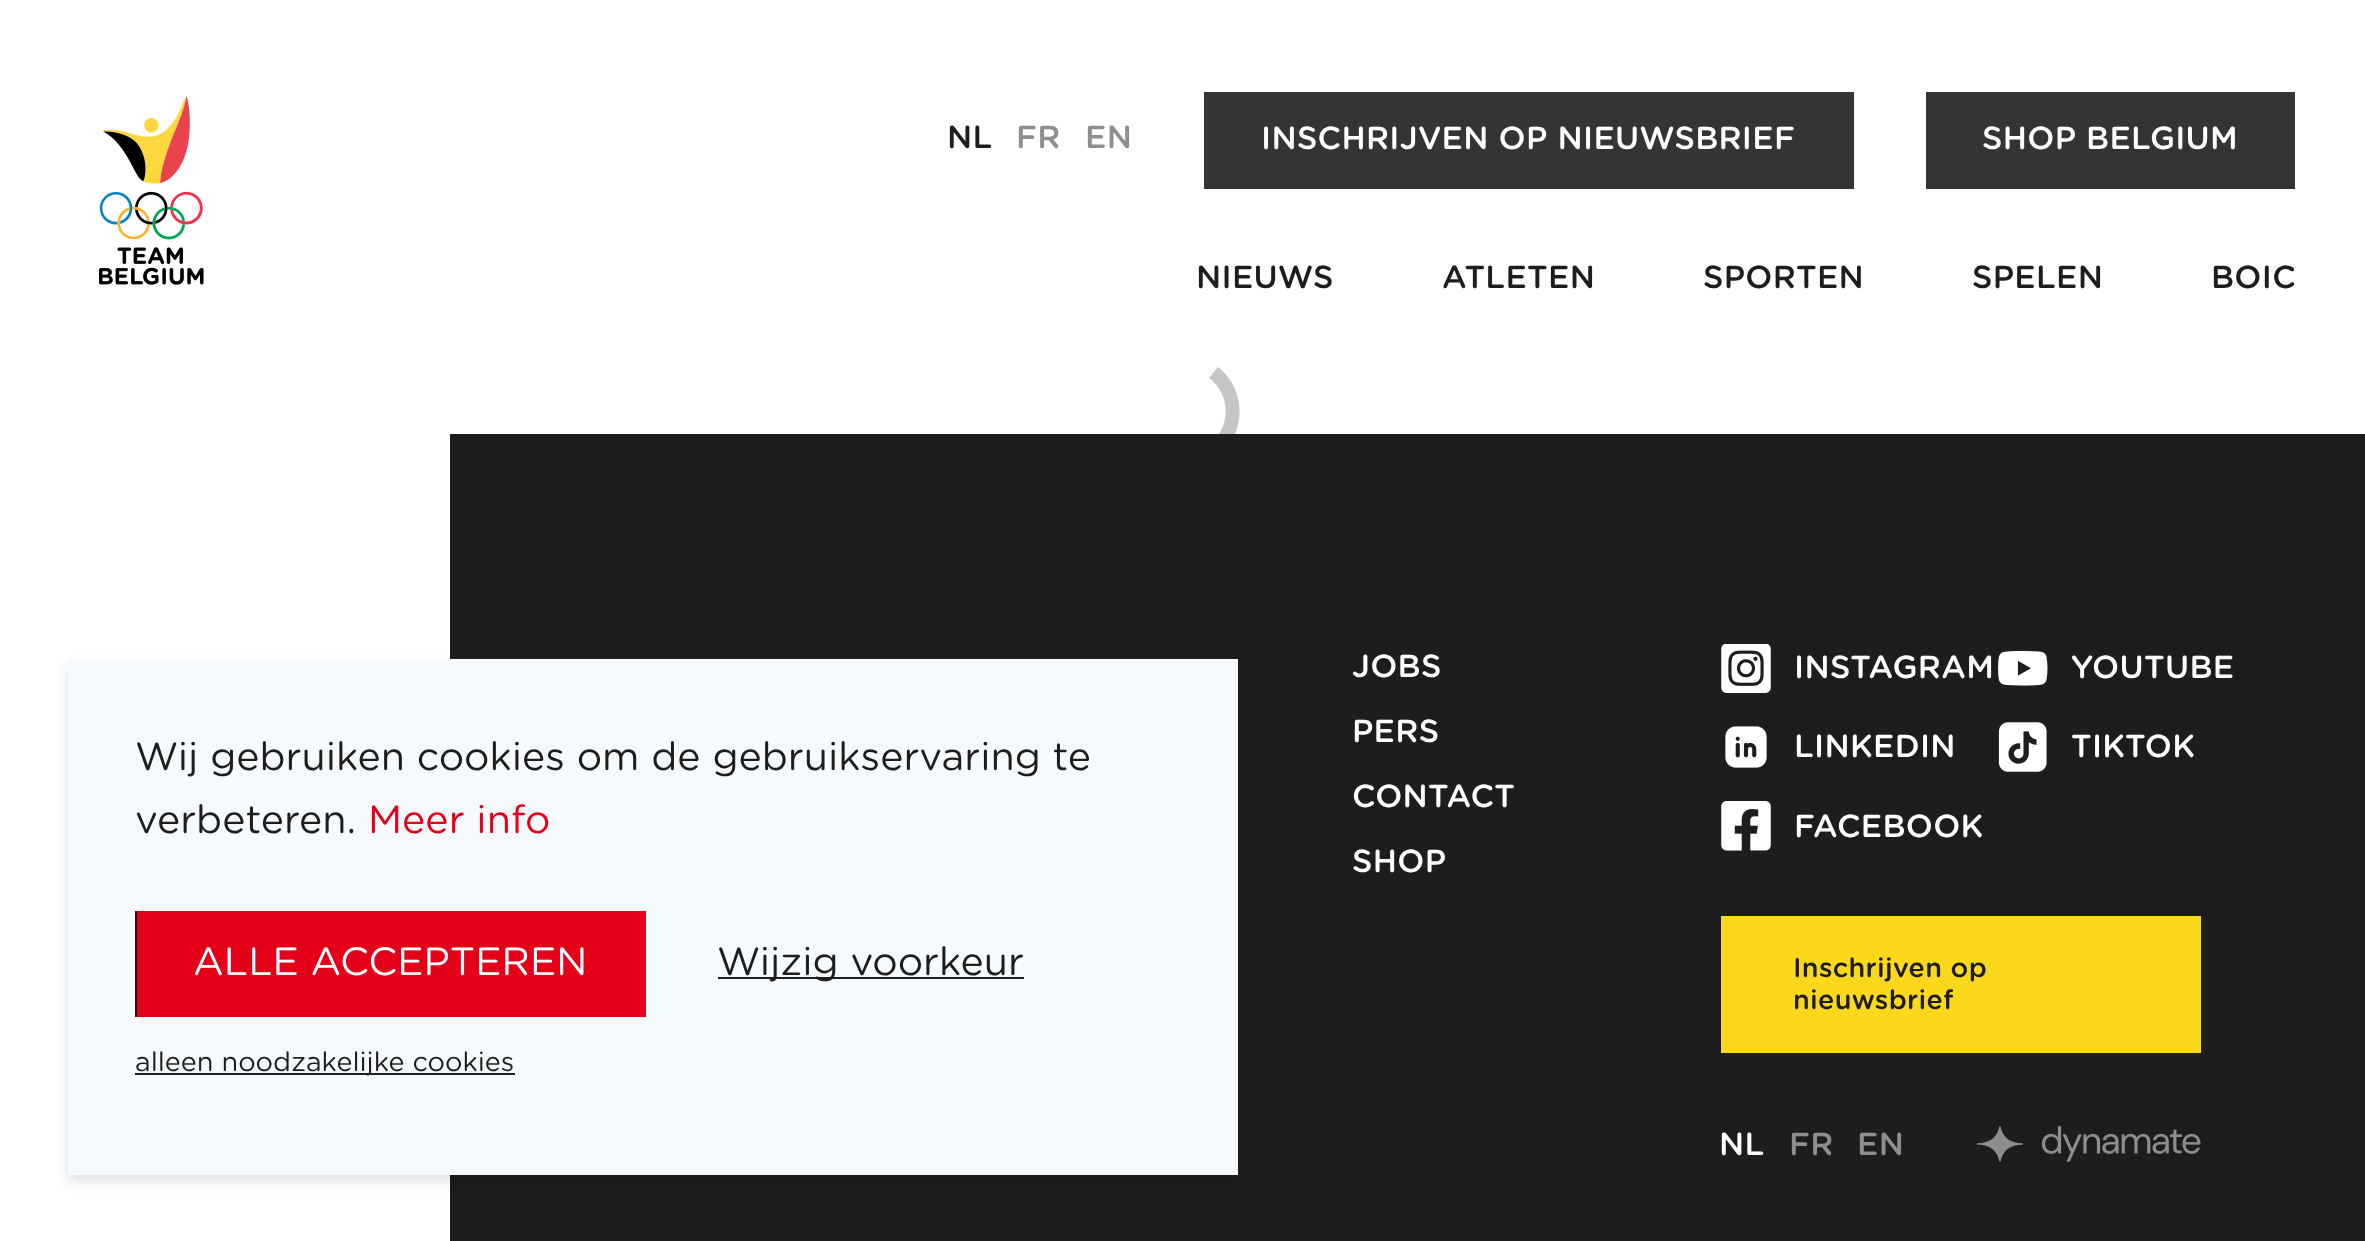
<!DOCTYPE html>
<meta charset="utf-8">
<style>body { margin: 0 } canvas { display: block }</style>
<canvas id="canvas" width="2365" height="1241"></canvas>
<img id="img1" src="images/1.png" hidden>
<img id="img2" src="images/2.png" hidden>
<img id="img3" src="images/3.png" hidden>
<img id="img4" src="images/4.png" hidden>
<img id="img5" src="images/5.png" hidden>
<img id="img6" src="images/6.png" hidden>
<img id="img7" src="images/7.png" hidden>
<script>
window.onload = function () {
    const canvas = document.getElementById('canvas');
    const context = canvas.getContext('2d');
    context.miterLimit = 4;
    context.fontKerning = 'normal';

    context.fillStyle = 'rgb(255, 255, 255)';
    context.fillRect(0, 0, 2365, 1241);
    context.fillStyle = 'rgb(197, 197, 197)';
    context.beginPath();
    context.moveTo(1218, 367);
    context.bezierCurveTo(1242, 386, 1247, 421, 1228, 446);
    context.lineTo(1217, 437);
    context.bezierCurveTo(1231, 419, 1228, 392, 1209, 378);
    context.closePath();
    context.fill();
    context.fillStyle = 'rgb(29, 29, 29)';
    context.fillRect(450, 434, 1915, 807);
    context.fillStyle = 'rgba(0, 0, 0, 0.12)';
    context.filter = 'blur(7px)';
    context.beginPath();
    context.rect(68, 666, 1170, 515);
    context.fill();
    context.filter = 'none';
    context.fillStyle = 'rgb(247, 250, 252)';
    context.fillRect(68, 659, 1170, 516);
    context.fillStyle = 'rgb(229, 0, 25)';
    context.fillRect(137, 911, 509, 106);
    context.fillStyle = 'rgb(29, 29, 29)';
    context.fillRect(135, 911, 2, 106);
    context.fillRect(718, 977, 306, 2);
    context.fillRect(135, 1073, 380, 2);
    context.drawImage(document.getElementById('img1'), 99, 96, 105, 189);
    context.fillStyle = 'rgb(52, 52, 52)';
    context.fillRect(1204, 92, 650, 97);
    context.fillRect(1926, 92, 369, 97);
    context.drawImage(document.getElementById('img2'), 1721, 644, 50, 49);
    context.drawImage(document.getElementById('img3'), 1998, 650, 50, 36);
    context.drawImage(document.getElementById('img4'), 1725, 726, 42, 42);
    context.drawImage(document.getElementById('img5'), 1998, 722, 49, 50);
    context.drawImage(document.getElementById('img6'), 1721, 801, 50, 50);
    context.fillStyle = 'rgb(252, 216, 28)';
    context.fillRect(1721, 916, 480, 137);
    context.drawImage(document.getElementById('img7'), 1976, 1126, 225, 36);
    context.font = '39.3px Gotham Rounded';
    context.fillStyle = 'rgb(29, 29, 29)';
    context.fillText('Wij gebruiken cookies om de gebruikservaring te', 135, 770);
    context.fillText('verbeteren.', 135, 833);
    context.fillStyle = 'rgb(229, 0, 25)';
    context.fillText('Meer info', 368, 833);
    context.fillStyle = 'rgb(255, 255, 255)';
    context.fillText('ALLE ACCEPTEREN', 193, 975);
    context.fillStyle = 'rgb(29, 29, 29)';
    context.fillText('Wijzig voorkeur', 717, 975);
    context.font = '27px Gotham Rounded';
    context.fillText('alleen noodzakelijke cookies', 135, 1071);
    context.letterSpacing = '0.3px';
    context.font = '500 31.9px Gotham Rounded';
    context.fillText('NL', 947, 148);
    context.fillStyle = 'rgb(142, 142, 142)';
    context.fillText('FR', 1016, 148);
    context.fillText('EN', 1085, 148);
    context.fillStyle = 'rgb(255, 255, 255)';
    context.fillText('INSCHRIJVEN OP NIEUWSBRIEF', 1261, 149);
    context.fillText('SHOP BELGIUM', 1982, 149);
    context.fillStyle = 'rgb(29, 29, 29)';
    context.fillText('NIEUWS', 1196, 288);
    context.fillText('ATLETEN', 1442, 288);
    context.fillText('SPORTEN', 1703, 288);
    context.fillText('SPELEN', 1972, 288);
    context.fillText('BOIC', 2211, 288);
    context.fillStyle = 'rgb(255, 255, 255)';
    context.fillText('JOBS', 1352, 677);
    context.fillText('PERS', 1352, 742);
    context.fillText('CONTACT', 1352, 807);
    context.fillText('SHOP', 1352, 872);
    context.fillText('INSTAGRAM', 1794, 678);
    context.fillText('YOUTUBE', 2071, 678);
    context.fillText('LINKEDIN', 1794, 757);
    context.fillText('TIKTOK', 2071, 757);
    context.fillText('FACEBOOK', 1794, 837);
    context.font = '500 27px Gotham Rounded';
    context.fillStyle = 'rgb(29, 29, 29)';
    context.fillText('Inschrijven op', 1793, 977);
    context.fillText('nieuwsbrief', 1793, 1009);
    context.font = '500 31.9px Gotham Rounded';
    context.fillStyle = 'rgb(255, 255, 255)';
    context.fillText('NL', 1719, 1155);
    context.fillStyle = 'rgb(142, 142, 142)';
    context.fillText('FR', 1789, 1155);
    context.fillText('EN', 1857, 1155);
};
</script>
